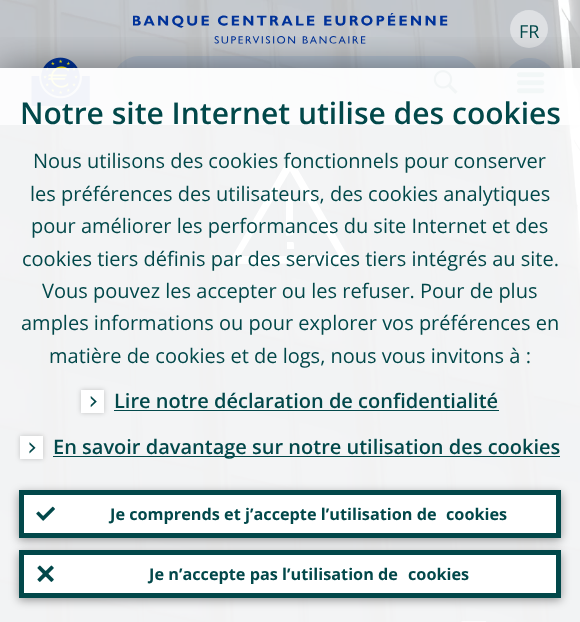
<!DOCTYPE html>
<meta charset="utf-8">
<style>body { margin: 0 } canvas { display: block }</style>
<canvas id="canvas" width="580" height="622"></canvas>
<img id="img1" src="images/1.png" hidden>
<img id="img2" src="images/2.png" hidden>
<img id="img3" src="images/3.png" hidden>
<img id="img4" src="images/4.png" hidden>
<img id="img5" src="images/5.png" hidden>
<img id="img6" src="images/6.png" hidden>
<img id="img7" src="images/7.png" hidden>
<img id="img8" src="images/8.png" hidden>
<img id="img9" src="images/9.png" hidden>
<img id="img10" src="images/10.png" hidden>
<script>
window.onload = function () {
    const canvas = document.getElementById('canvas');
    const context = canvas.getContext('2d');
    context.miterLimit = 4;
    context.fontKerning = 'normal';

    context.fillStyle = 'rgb(255, 255, 255)';
    context.fillRect(0, 0, 580, 622);
    context.drawImage(document.getElementById('img1'), 0, 0, 580, 622);
    context.beginPath();
    context.moveTo(293, 242);
    context.lineTo(287, 242);
    context.lineTo(287, 249);
    context.lineTo(292, 249);
    context.bezierCurveTo(295, 249, 294, 249, 294, 245);
    context.bezierCurveTo(294, 245, 294, 242, 293, 242);
    context.closePath();
    context.moveTo(352, 263);
    context.lineTo(290, 156);
    context.lineTo(228, 264);
    context.closePath();
    context.moveTo(339, 256);
    context.lineTo(240, 256);
    context.lineTo(290, 171);
    context.closePath();
    context.moveTo(293, 196);
    context.bezierCurveTo(285, 196, 286, 194, 286, 203);
    context.lineTo(286, 229);
    context.bezierCurveTo(286, 238, 285, 236, 293, 235);
    context.closePath();
    context.fill();
    context.drawImage(document.getElementById('img2'), 461, 621, 25, 1);
    context.save();
    context.beginPath();
    context.rect(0, 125, 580, 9);
    context.clip();
    context.fillStyle = 'rgba(0, 0, 0, 0.3)';
    context.filter = 'blur(6px)';
    context.beginPath();
    context.rect(0, 0, 580, 125);
    context.fill();
    context.filter = 'none';
    context.restore();
    context.fillStyle = 'rgba(255, 255, 255, 0.75)';
    context.fillRect(0, 0, 580, 125);
    context.drawImage(document.getElementById('img3'), 133, 13, 315, 31);
    context.fillStyle = 'rgb(222, 224, 227)';
    context.beginPath();
    context.arc(529, 29, 19, 0, 2 * Math.PI);
    context.fill();
    context.drawImage(document.getElementById('img4'), 31, 57, 59, 49);
    context.fillStyle = 'rgba(64, 118, 189, 0.15)';
    context.beginPath();
    context.roundRect(113, 56, 367, 52, 26);
    context.fill();
    context.drawImage(document.getElementById('img5'), 433, 70, 25, 24);
    context.beginPath();
    context.roundRect(504, 58, 52, 52, 25);
    context.fill();
    context.drawImage(document.getElementById('img6'), 516, 72, 29, 22);
    context.save();
    context.beginPath();
    context.rect(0, 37, 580, 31);
    context.clip();
    context.fillStyle = 'rgba(0, 0, 0, 0.5)';
    context.filter = 'blur(19px)';
    context.beginPath();
    context.rect(0, 70, 580, 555);
    context.fill();
    context.filter = 'none';
    context.restore();
    context.fillStyle = 'rgba(255, 255, 255, 0.95)';
    context.fillRect(0, 68, 580, 554);
    context.fillStyle = 'rgba(0, 0, 0, 0.2)';
    context.filter = 'blur(2.5px)';
    context.beginPath();
    context.rect(81, 390, 23, 23);
    context.fill();
    context.filter = 'none';
    context.fillStyle = 'rgb(255, 255, 255)';
    context.fillRect(81, 390, 23, 23);
    context.drawImage(document.getElementById('img7'), 90, 396, 7, 12);
    context.fillStyle = 'rgb(2, 72, 74)';
    context.fillRect(114, 410, 385, 1);
    context.fillStyle = 'rgba(0, 0, 0, 0.2)';
    context.filter = 'blur(2.5px)';
    context.beginPath();
    context.rect(20, 436, 23, 23);
    context.fill();
    context.filter = 'none';
    context.fillStyle = 'rgb(255, 255, 255)';
    context.fillRect(20, 436, 23, 23);
    context.drawImage(document.getElementById('img8'), 29, 442, 7, 12);
    context.fillStyle = 'rgb(2, 72, 74)';
    context.fillRect(53, 456, 507, 1);
    context.fillStyle = 'rgba(0, 0, 0, 0.4)';
    context.filter = 'blur(5px)';
    context.beginPath();
    context.rect(19, 493, 542, 47);
    context.fill();
    context.filter = 'none';
    context.fillStyle = 'rgb(255, 255, 255)';
    context.beginPath();
    context.rect(21.5, 492.5, 537, 43);
    context.fill();
    context.strokeStyle = 'rgb(2, 72, 74)';
    context.lineWidth = 5;
    context.stroke();
    context.drawImage(document.getElementById('img9'), 36, 506, 19, 15);
    context.fillStyle = 'rgba(0, 0, 0, 0.4)';
    context.filter = 'blur(5px)';
    context.beginPath();
    context.rect(19, 553, 542, 47);
    context.fill();
    context.filter = 'none';
    context.fillStyle = 'rgb(255, 255, 255)';
    context.beginPath();
    context.rect(21.5, 552.5, 537, 43);
    context.fill();
    context.stroke();
    context.drawImage(document.getElementById('img10'), 37, 565, 17, 17);
    context.font = '18px Open Sans';
    context.fillStyle = 'rgb(2, 72, 74)';
    context.fillText('FR', 519, 38);
    context.font = '600 30px Open Sans';
    context.fillText('Notre site Internet utilise des cookies', 20, 124);
    context.font = '20px Open Sans';
    context.fillText('Nous utilisons des cookies fonctionnels pour conserver', 33, 168);
    context.fillText('les préférences des utilisateurs, des cookies analytiques', 30, 201);
    context.fillText('pour améliorer les performances du site Internet et des', 31, 233);
    context.fillText('cookies tiers définis par des services tiers intégrés au site.', 22, 266);
    context.fillText('Vous pouvez les accepter ou les refuser. Pour de plus', 42, 298);
    context.fillText('amples informations ou pour explorer vos préférences en', 21, 330);
    context.fillText('matière de cookies et de logs, nous vous invitons à :', 49, 363);
    context.font = '600 20px Open Sans';
    context.fillText('Lire notre déclaration de confidentialité', 114, 408);
    context.fillText('En savoir davantage sur notre utilisation des cookies', 53, 454);
    context.font = 'bold 16.25px Open Sans';
    context.fillText('Je comprends et j’accepte l’utilisation de', 110, 520);
    context.fillText('cookies', 446, 520);
    context.fillText('Je n’accepte pas l’utilisation de', 149, 580);
    context.fillText('cookies', 408, 580);
};
</script>
